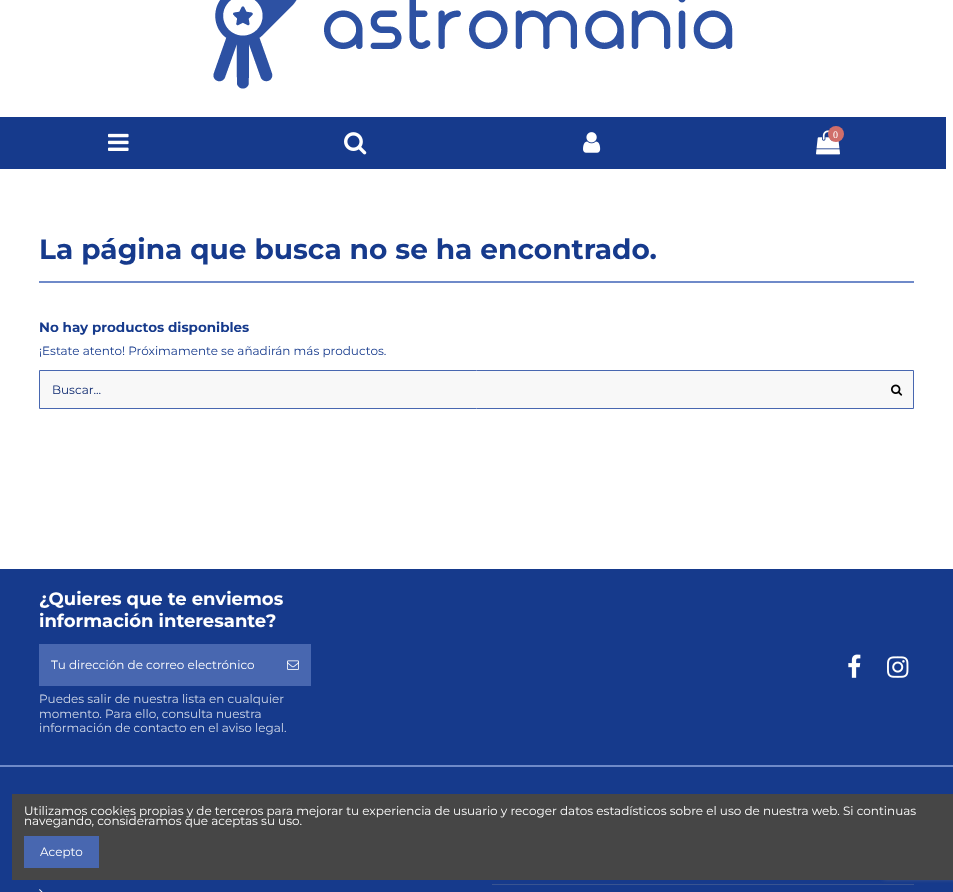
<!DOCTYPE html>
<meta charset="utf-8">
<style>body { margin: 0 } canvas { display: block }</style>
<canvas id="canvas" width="953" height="892"></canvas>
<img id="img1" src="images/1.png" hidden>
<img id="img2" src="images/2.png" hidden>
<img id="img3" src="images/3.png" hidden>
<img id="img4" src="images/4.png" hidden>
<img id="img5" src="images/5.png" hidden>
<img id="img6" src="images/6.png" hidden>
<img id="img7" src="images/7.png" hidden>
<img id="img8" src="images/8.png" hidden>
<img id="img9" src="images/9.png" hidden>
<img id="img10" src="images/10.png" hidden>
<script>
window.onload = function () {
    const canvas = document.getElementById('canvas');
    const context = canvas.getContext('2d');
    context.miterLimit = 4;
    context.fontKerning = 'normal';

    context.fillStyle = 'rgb(255, 255, 255)';
    context.fillRect(0, 0, 953, 892);
    context.drawImage(document.getElementById('img1'), 213, 0, 520, 89);
    context.fillStyle = 'rgb(22, 58, 140)';
    context.fillRect(0, 117, 946, 52);
    context.drawImage(document.getElementById('img2'), 108, 133, 21, 18);
    context.drawImage(document.getElementById('img3'), 344, 132, 23, 23);
    context.drawImage(document.getElementById('img4'), 583, 132, 18, 21);
    context.drawImage(document.getElementById('img5'), 816, 130, 24, 25);
    context.fillStyle = 'rgb(208, 110, 106)';
    context.beginPath();
    context.arc(836, 134, 8, 0, 2 * Math.PI);
    context.fill();
    context.fillStyle = 'rgb(111, 138, 201)';
    context.fillRect(39, 281, 875, 2);
    context.fillStyle = 'rgb(248, 248, 248)';
    context.beginPath();
    context.rect(39.5, 370.5, 874, 38);
    context.fill();
    context.strokeStyle = 'rgb(72, 103, 176)';
    context.stroke();
    context.drawImage(document.getElementById('img6'), 891, 384, 12, 12);
    context.fillStyle = 'rgb(22, 58, 140)';
    context.fillRect(0, 569, 953, 323);
    context.fillStyle = 'rgb(72, 103, 176)';
    context.fillRect(39, 644, 272, 42);
    context.drawImage(document.getElementById('img7'), 287, 660, 12, 10);
    context.drawImage(document.getElementById('img8'), 848, 654, 13, 24);
    context.drawImage(document.getElementById('img9'), 887, 656, 22, 22);
    context.fillStyle = 'rgb(111, 138, 201)';
    context.fillRect(0, 765, 953, 2);
    context.fillStyle = 'rgb(57, 84, 145)';
    context.fillRect(492, 884, 422, 1);
    context.drawImage(document.getElementById('img10'), 39, 889, 4, 3);
    context.fillStyle = 'rgb(128, 128, 128)';
    context.filter = 'blur(2.5px)';
    context.beginPath();
    context.roundRect(883, 818, 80, 60, 2);
    context.fill();
    context.filter = 'none';
    context.fillStyle = 'rgb(70, 70, 70)';
    context.fillRect(12, 794, 941, 86);
    context.fillStyle = 'rgb(72, 103, 176)';
    context.fillRect(24, 836, 75, 32);
    context.font = '10px Liberation Serif';
    context.fillStyle = 'rgb(255, 255, 255)';
    context.fillText('0', 833, 138);
    context.font = 'bold 28px Montserrat';
    context.fillStyle = 'rgb(22, 58, 140)';
    context.fillText('La página que busca no se ha encontrado.', 39, 259);
    context.font = 'bold 13.5px Montserrat';
    context.fillText('No hay productos disponibles', 39, 332);
    context.font = '12px Montserrat';
    context.fillText('¡Estate atento! Próximamente se añadirán más productos.', 39, 355);
    context.fillStyle = 'rgb(12, 40, 111)';
    context.fillText('Buscar...', 52, 394);
    context.font = 'bold 18px Montserrat';
    context.fillStyle = 'rgb(255, 255, 255)';
    context.fillText('¿Quieres que te enviemos', 39, 605);
    context.fillText('información interesante?', 39, 627);
    context.font = '12px Montserrat';
    context.fillText('Tu dirección de correo electrónico', 51, 669);
    context.fillStyle = 'rgb(208, 216, 232)';
    context.fillText('Puedes salir de nuestra lista en cualquier', 39, 703);
    context.fillText('momento. Para ello, consulta nuestra', 39, 718);
    context.fillText('información de contacto en el aviso legal.', 39, 732);
    context.fillStyle = 'rgb(255, 255, 255)';
    context.fillText('Utilizamos cookies propias y de terceros para mejorar tu experiencia de usuario y recoger datos estadísticos sobre el uso de nuestra web. Si continuas', 24, 815);
    context.fillText('navegando, consideramos que aceptas su uso.', 24, 825);
    context.fillText('Acepto', 40, 856);
};
</script>
